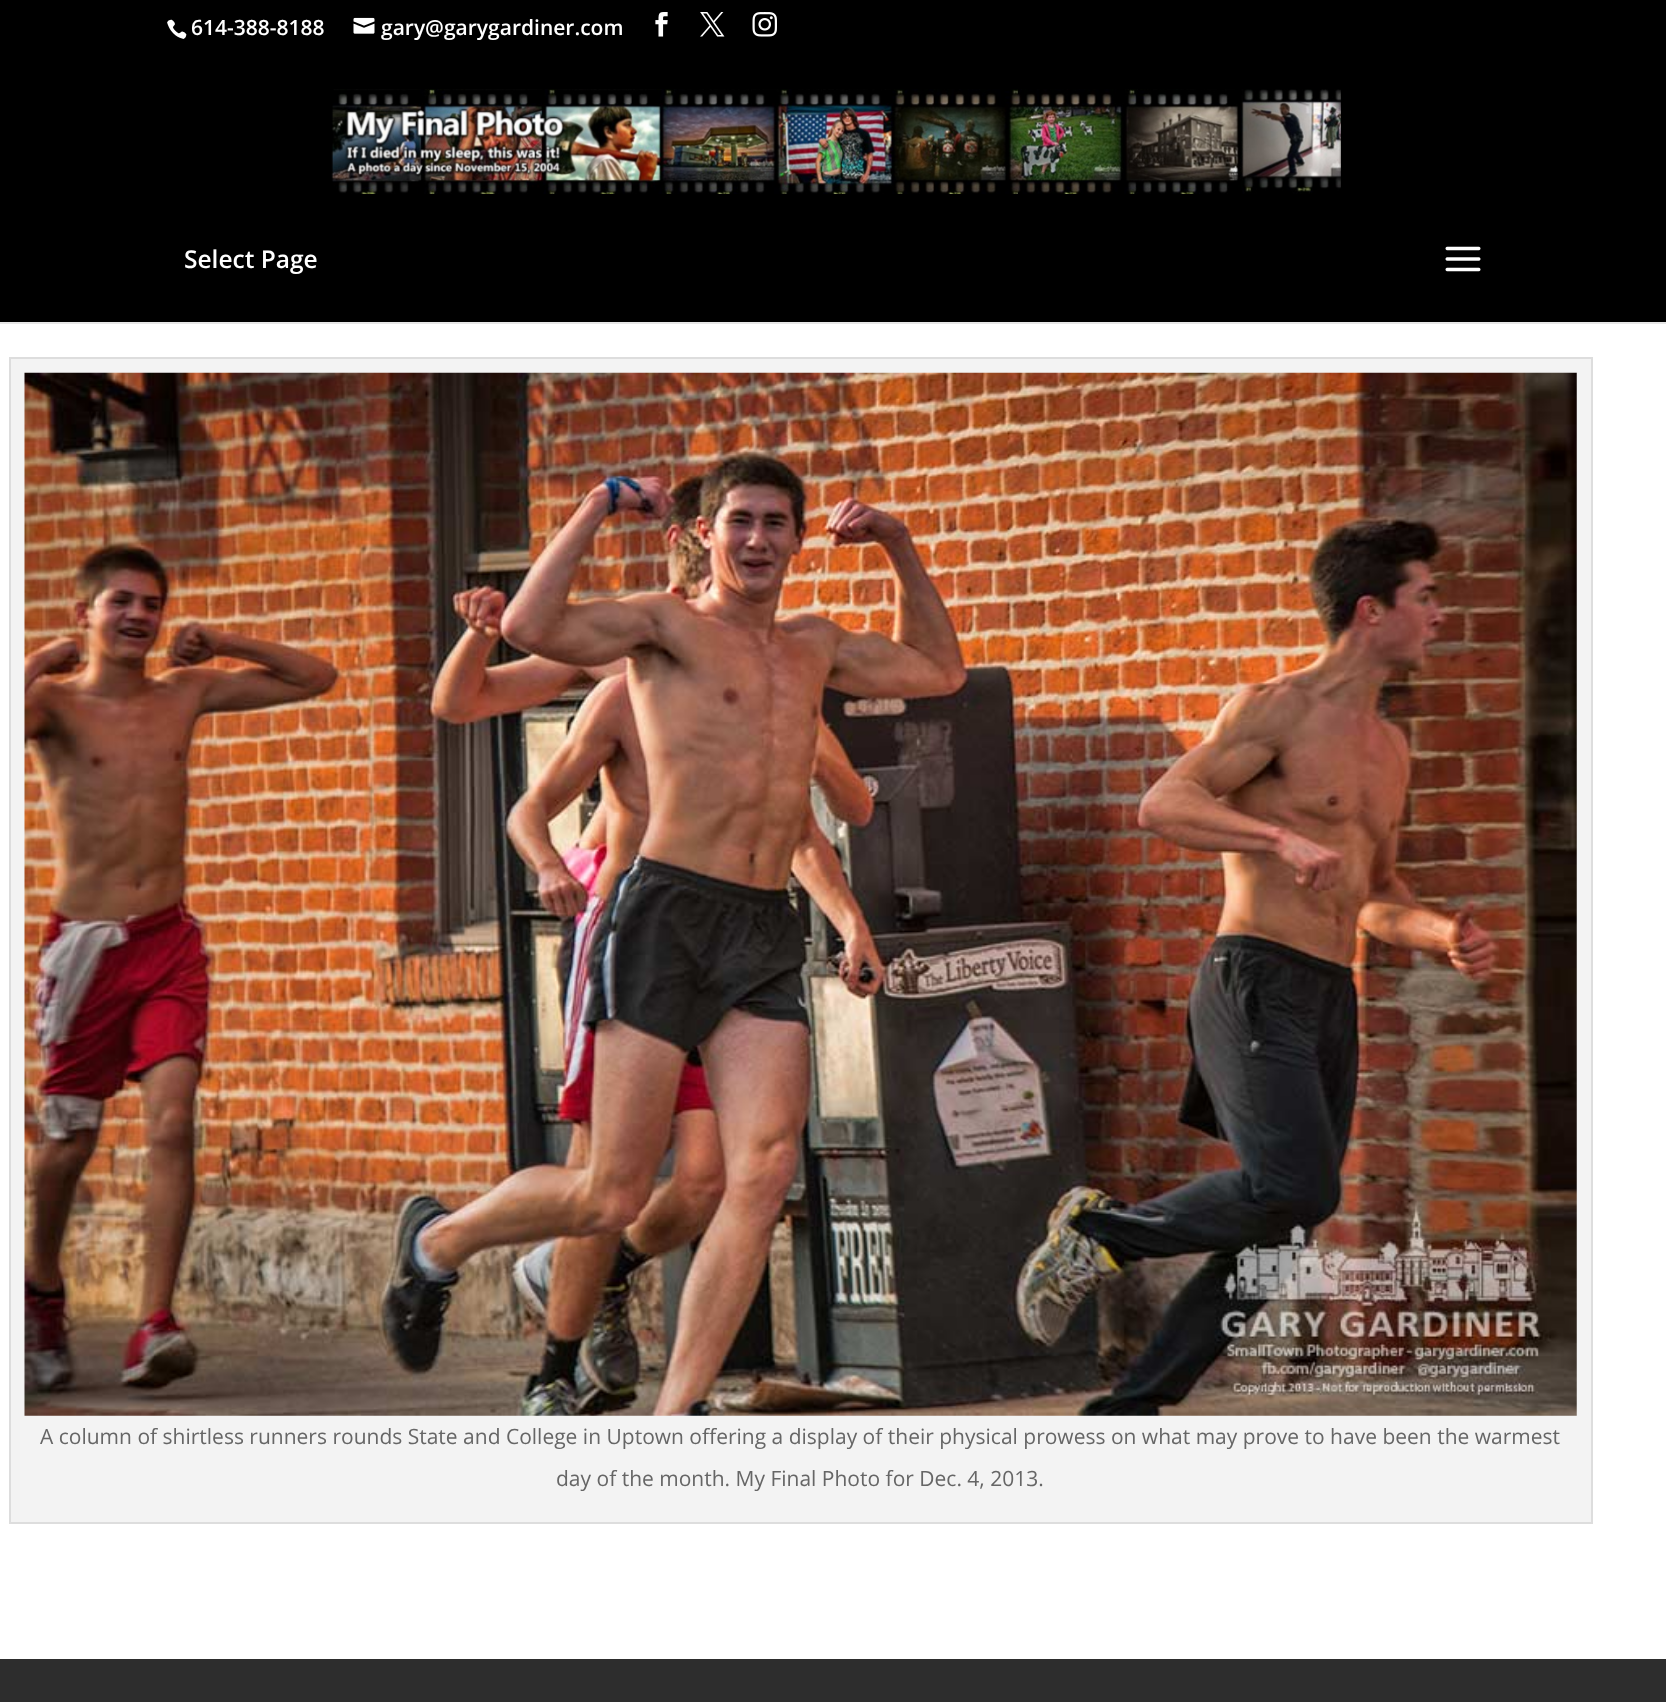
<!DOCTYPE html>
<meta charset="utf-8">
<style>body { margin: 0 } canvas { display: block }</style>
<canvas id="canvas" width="1666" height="1702"></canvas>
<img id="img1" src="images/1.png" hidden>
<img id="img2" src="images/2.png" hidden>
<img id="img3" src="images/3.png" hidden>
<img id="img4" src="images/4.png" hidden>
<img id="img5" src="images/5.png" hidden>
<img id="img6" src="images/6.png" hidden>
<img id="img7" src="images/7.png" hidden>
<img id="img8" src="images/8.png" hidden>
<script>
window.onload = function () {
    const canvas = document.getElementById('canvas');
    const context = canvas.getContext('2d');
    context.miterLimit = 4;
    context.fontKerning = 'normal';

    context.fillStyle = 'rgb(255, 255, 255)';
    context.fillRect(0, 0, 1666, 1702);
    context.fillStyle = 'rgb(0, 0, 0)';
    context.fillRect(0, 0, 1666, 322);
    context.drawImage(document.getElementById('img1'), 167, 19, 20, 20);
    context.drawImage(document.getElementById('img2'), 353, 17, 22, 17);
    context.drawImage(document.getElementById('img3'), 655, 12, 13, 25);
    context.drawImage(document.getElementById('img4'), 700, 12, 25, 25);
    context.drawImage(document.getElementById('img5'), 752, 12, 25, 25);
    context.fillStyle = 'rgb(230, 230, 230)';
    context.fillRect(0, 322, 1666, 2);
    context.drawImage(document.getElementById('img6'), 331, 89, 1010, 105);
    context.drawImage(document.getElementById('img7'), 1445, 246, 36, 26);
    context.fillStyle = 'rgb(243, 243, 243)';
    context.beginPath();
    context.rect(10, 358, 1582, 1165);
    context.fill();
    context.strokeStyle = 'rgb(221, 221, 221)';
    context.lineWidth = 2;
    context.stroke();
    context.drawImage(document.getElementById('img8'), 24, 372, 1553, 1044);
    context.fillStyle = 'rgb(45, 45, 45)';
    context.fillRect(0, 1659, 1666, 43);
    context.font = '600 21px Open Sans';
    context.fillStyle = 'rgb(255, 255, 255)';
    context.fillText('614-388-8188', 191, 35);
    context.fillText('gary@garygardiner.com', 381, 35);
    context.font = '600 24.5px Open Sans';
    context.fillText('Select Page', 184, 268);
    context.font = '21px Open Sans';
    context.fillStyle = 'rgb(102, 102, 102)';
    context.fillText('A column of shirtless runners rounds State and College in Uptown offering a display of their physical prowess on what may prove to have been the warmest', 40, 1444);
    context.fillText('day of the month. My Final Photo for Dec. 4, 2013.', 556, 1486);
};
</script>
